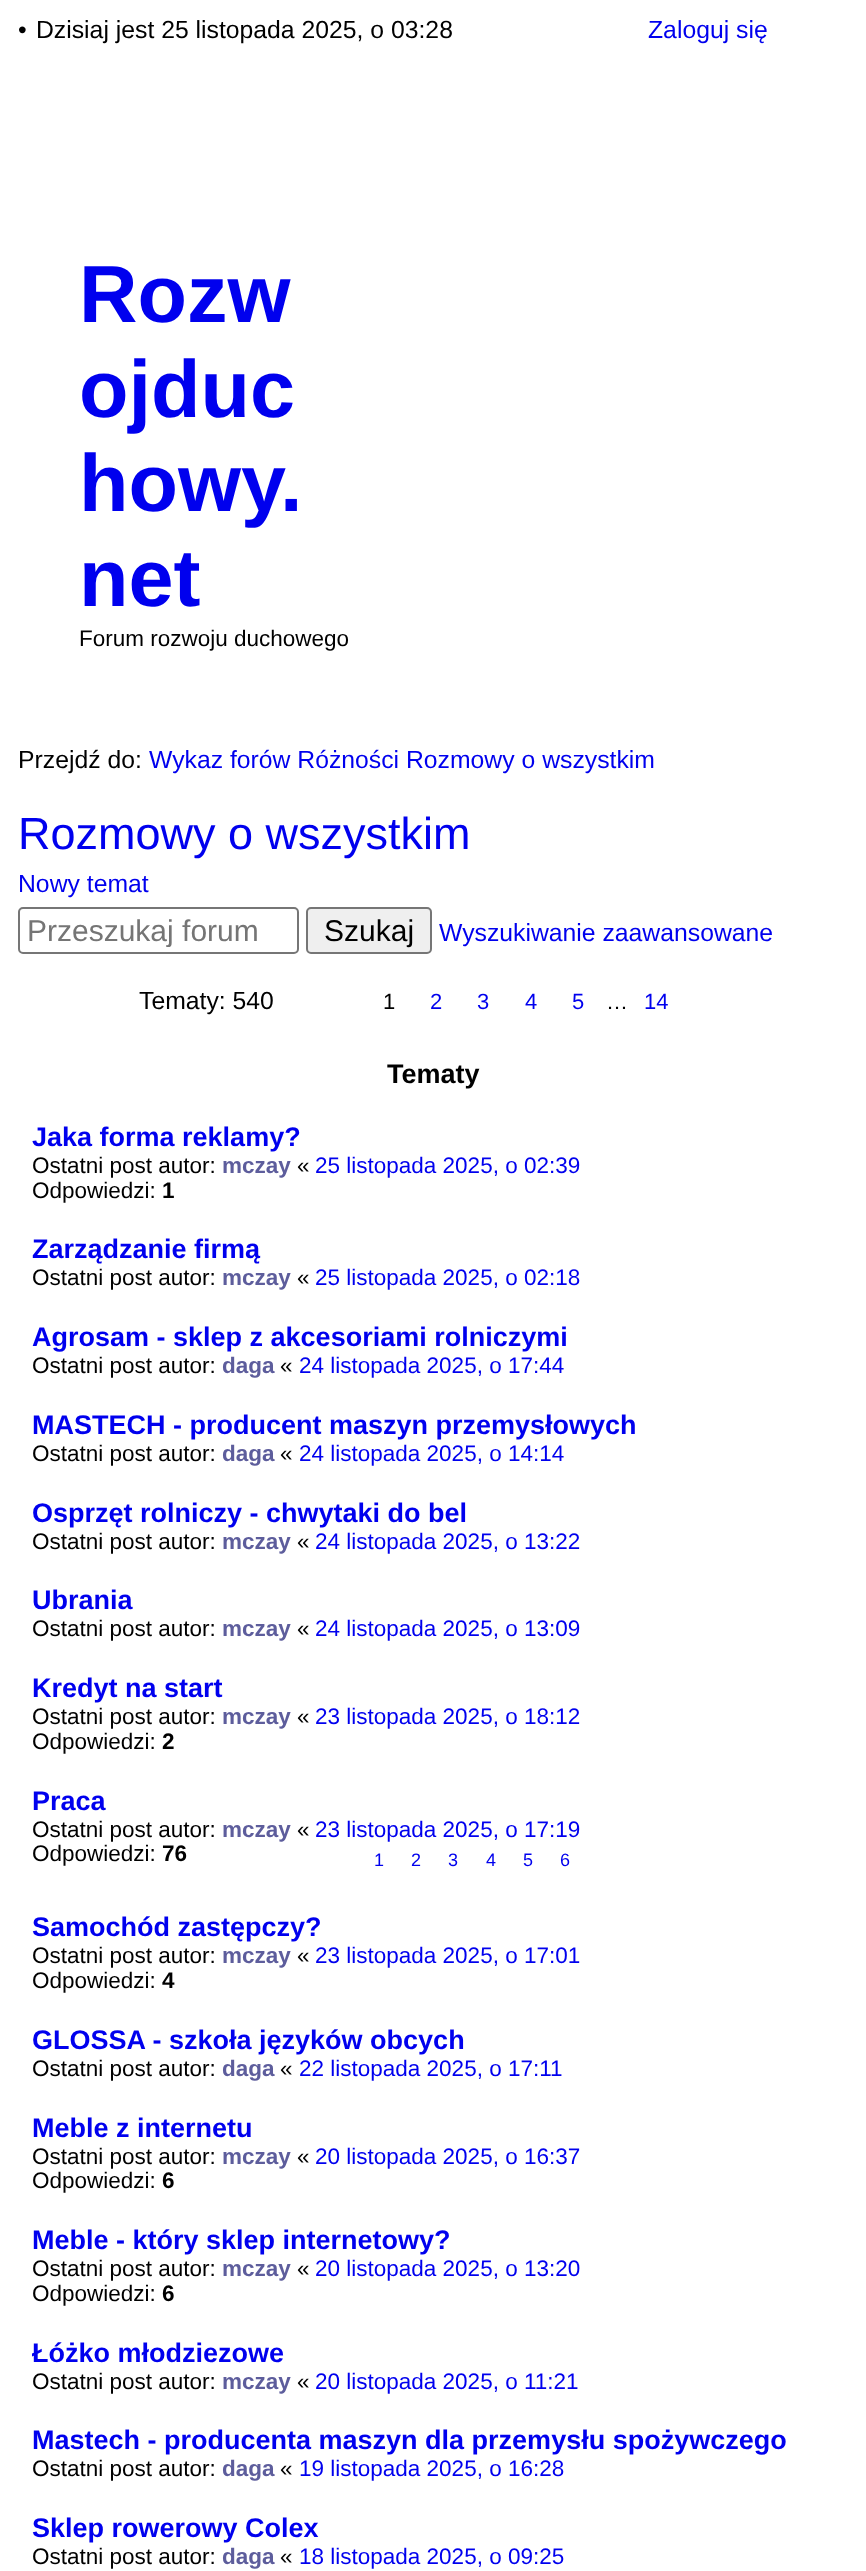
<!DOCTYPE html>
<meta charset="utf-8">
<style>body { margin: 0 } canvas { display: block }</style>
<canvas id="canvas" width="866" height="2571"></canvas>
<script>
window.onload = function () {
    const canvas = document.getElementById('canvas');
    const context = canvas.getContext('2d');
    context.miterLimit = 4;
    context.fontKerning = 'normal';

    context.fillStyle = 'rgb(255, 255, 255)';
    context.fillRect(0, 0, 866, 2571);
    context.beginPath();
    context.roundRect(19, 908, 279, 45, 4);
    context.strokeStyle = 'rgb(118, 118, 118)';
    context.lineWidth = 2;
    context.stroke();
    context.fillStyle = 'rgb(239, 239, 239)';
    context.beginPath();
    context.roundRect(307, 908, 124, 45, 4);
    context.fill();
    context.stroke();
    context.font = '24.75px Liberation Sans';
    context.fillStyle = 'rgb(0, 0, 0)';
    context.fillText('•', 18, 38);
    context.fillText('Dzisiaj jest 25 listopada 2025, o 03:28', 36, 38);
    context.fillStyle = 'rgb(0, 0, 238)';
    context.fillText('Zaloguj się', 648, 38);
    context.font = 'bold 81px Liberation Sans';
    context.fillText('Rozw', 79, 322);
    context.fillText('ojduc', 79, 417);
    context.fillText('howy.', 79, 511);
    context.fillText('net', 79, 606);
    context.font = '22.5px Liberation Sans';
    context.fillStyle = 'rgb(0, 0, 0)';
    context.fillText('Forum rozwoju duchowego', 79, 646);
    context.font = '24.75px Liberation Sans';
    context.fillText('Przejdź do:', 18, 768);
    context.fillStyle = 'rgb(0, 0, 238)';
    context.fillText('Wykaz forów Różności Rozmowy o wszystkim', 149, 768);
    context.font = '45px Liberation Sans';
    context.fillText('Rozmowy o wszystkim', 18, 849);
    context.font = '24.75px Liberation Sans';
    context.fillText('Nowy temat', 18, 892);
    context.save();
    context.beginPath();
    context.rect(27, 914, 234, 33);
    context.clip();
    context.font = '30px Liberation Sans';
    context.fillStyle = 'rgb(117, 117, 117)';
    context.fillText('Przeszukaj forum', 27, 941);
    context.restore();
    context.font = '30px Liberation Sans';
    context.fillStyle = 'rgb(0, 0, 0)';
    context.fillText('Szukaj', 324, 941);
    context.font = '24.75px Liberation Sans';
    context.fillStyle = 'rgb(0, 0, 238)';
    context.fillText('Wyszukiwanie zaawansowane', 439, 941);
    context.fillStyle = 'rgb(0, 0, 0)';
    context.fillText('Tematy: 540', 139, 1009);
    context.font = '22px Liberation Sans';
    context.fillText('1', 383, 1009);
    context.fillStyle = 'rgb(0, 0, 238)';
    context.fillText('2', 430, 1009);
    context.fillText('3', 477, 1009);
    context.fillText('4', 525, 1009);
    context.fillText('5', 572, 1009);
    context.fillStyle = 'rgb(0, 0, 0)';
    context.fillText('…', 606, 1009);
    context.fillStyle = 'rgb(0, 0, 238)';
    context.fillText('14', 644, 1009);
    context.font = 'bold 27px Liberation Sans';
    context.fillStyle = 'rgb(0, 0, 0)';
    context.fillText('Tematy', 387, 1083);
    context.fillStyle = 'rgb(0, 0, 238)';
    context.fillText('Jaka forma reklamy?', 32, 1146);
    context.font = '22.5px Liberation Sans';
    context.fillStyle = 'rgb(0, 0, 0)';
    context.fillText('Ostatni post autor:', 32, 1173);
    context.font = 'bold 22.5px Liberation Sans';
    context.fillStyle = 'rgb(93, 93, 156)';
    context.fillText('mczay', 222, 1173);
    context.font = '22.5px Liberation Sans';
    context.fillStyle = 'rgb(0, 0, 0)';
    context.fillText('«', 297, 1173);
    context.fillStyle = 'rgb(0, 0, 238)';
    context.fillText('25 listopada 2025, o 02:39', 315, 1173);
    context.fillStyle = 'rgb(0, 0, 0)';
    context.fillText('Odpowiedzi:', 32, 1198);
    context.font = 'bold 22.5px Liberation Sans';
    context.fillText('1', 162, 1198);
    context.font = 'bold 27px Liberation Sans';
    context.fillStyle = 'rgb(0, 0, 238)';
    context.fillText('Zarządzanie firmą', 32, 1258);
    context.font = '22.5px Liberation Sans';
    context.fillStyle = 'rgb(0, 0, 0)';
    context.fillText('Ostatni post autor:', 32, 1285);
    context.font = 'bold 22.5px Liberation Sans';
    context.fillStyle = 'rgb(93, 93, 156)';
    context.fillText('mczay', 222, 1285);
    context.font = '22.5px Liberation Sans';
    context.fillStyle = 'rgb(0, 0, 0)';
    context.fillText('«', 297, 1285);
    context.fillStyle = 'rgb(0, 0, 238)';
    context.fillText('25 listopada 2025, o 02:18', 315, 1285);
    context.font = 'bold 27px Liberation Sans';
    context.fillText('Agrosam - sklep z akcesoriami rolniczymi', 32, 1346);
    context.font = '22.5px Liberation Sans';
    context.fillStyle = 'rgb(0, 0, 0)';
    context.fillText('Ostatni post autor:', 32, 1373);
    context.font = 'bold 22.5px Liberation Sans';
    context.fillStyle = 'rgb(93, 93, 156)';
    context.fillText('daga', 222, 1373);
    context.font = '22.5px Liberation Sans';
    context.fillStyle = 'rgb(0, 0, 0)';
    context.fillText('«', 280, 1373);
    context.fillStyle = 'rgb(0, 0, 238)';
    context.fillText('24 listopada 2025, o 17:44', 299, 1373);
    context.font = 'bold 27px Liberation Sans';
    context.fillText('MASTECH - producent maszyn przemysłowych', 32, 1434);
    context.font = '22.5px Liberation Sans';
    context.fillStyle = 'rgb(0, 0, 0)';
    context.fillText('Ostatni post autor:', 32, 1461);
    context.font = 'bold 22.5px Liberation Sans';
    context.fillStyle = 'rgb(93, 93, 156)';
    context.fillText('daga', 222, 1461);
    context.font = '22.5px Liberation Sans';
    context.fillStyle = 'rgb(0, 0, 0)';
    context.fillText('«', 280, 1461);
    context.fillStyle = 'rgb(0, 0, 238)';
    context.fillText('24 listopada 2025, o 14:14', 299, 1461);
    context.font = 'bold 27px Liberation Sans';
    context.fillText('Osprzęt rolniczy - chwytaki do bel', 32, 1522);
    context.font = '22.5px Liberation Sans';
    context.fillStyle = 'rgb(0, 0, 0)';
    context.fillText('Ostatni post autor:', 32, 1549);
    context.font = 'bold 22.5px Liberation Sans';
    context.fillStyle = 'rgb(93, 93, 156)';
    context.fillText('mczay', 222, 1549);
    context.font = '22.5px Liberation Sans';
    context.fillStyle = 'rgb(0, 0, 0)';
    context.fillText('«', 297, 1549);
    context.fillStyle = 'rgb(0, 0, 238)';
    context.fillText('24 listopada 2025, o 13:22', 315, 1549);
    context.font = 'bold 27px Liberation Sans';
    context.fillText('Ubrania', 32, 1609);
    context.font = '22.5px Liberation Sans';
    context.fillStyle = 'rgb(0, 0, 0)';
    context.fillText('Ostatni post autor:', 32, 1636);
    context.font = 'bold 22.5px Liberation Sans';
    context.fillStyle = 'rgb(93, 93, 156)';
    context.fillText('mczay', 222, 1636);
    context.font = '22.5px Liberation Sans';
    context.fillStyle = 'rgb(0, 0, 0)';
    context.fillText('«', 297, 1636);
    context.fillStyle = 'rgb(0, 0, 238)';
    context.fillText('24 listopada 2025, o 13:09', 315, 1636);
    context.font = 'bold 27px Liberation Sans';
    context.fillText('Kredyt na start', 32, 1697);
    context.font = '22.5px Liberation Sans';
    context.fillStyle = 'rgb(0, 0, 0)';
    context.fillText('Ostatni post autor:', 32, 1724);
    context.font = 'bold 22.5px Liberation Sans';
    context.fillStyle = 'rgb(93, 93, 156)';
    context.fillText('mczay', 222, 1724);
    context.font = '22.5px Liberation Sans';
    context.fillStyle = 'rgb(0, 0, 0)';
    context.fillText('«', 297, 1724);
    context.fillStyle = 'rgb(0, 0, 238)';
    context.fillText('23 listopada 2025, o 18:12', 315, 1724);
    context.fillStyle = 'rgb(0, 0, 0)';
    context.fillText('Odpowiedzi:', 32, 1749);
    context.font = 'bold 22.5px Liberation Sans';
    context.fillText('2', 162, 1749);
    context.font = 'bold 27px Liberation Sans';
    context.fillStyle = 'rgb(0, 0, 238)';
    context.fillText('Praca', 32, 1810);
    context.font = '22.5px Liberation Sans';
    context.fillStyle = 'rgb(0, 0, 0)';
    context.fillText('Ostatni post autor:', 32, 1837);
    context.font = 'bold 22.5px Liberation Sans';
    context.fillStyle = 'rgb(93, 93, 156)';
    context.fillText('mczay', 222, 1837);
    context.font = '22.5px Liberation Sans';
    context.fillStyle = 'rgb(0, 0, 0)';
    context.fillText('«', 297, 1837);
    context.fillStyle = 'rgb(0, 0, 238)';
    context.fillText('23 listopada 2025, o 17:19', 315, 1837);
    context.fillStyle = 'rgb(0, 0, 0)';
    context.fillText('Odpowiedzi:', 32, 1861);
    context.font = 'bold 22.5px Liberation Sans';
    context.fillText('76', 162, 1861);
    context.font = '18px Liberation Sans';
    context.fillStyle = 'rgb(0, 0, 238)';
    context.fillText('1', 374, 1866);
    context.fillText('2', 411, 1866);
    context.fillText('3', 448, 1866);
    context.fillText('4', 486, 1866);
    context.fillText('5', 523, 1866);
    context.fillText('6', 560, 1866);
    context.font = 'bold 27px Liberation Sans';
    context.fillText('Samochód zastępczy?', 32, 1936);
    context.font = '22.5px Liberation Sans';
    context.fillStyle = 'rgb(0, 0, 0)';
    context.fillText('Ostatni post autor:', 32, 1963);
    context.font = 'bold 22.5px Liberation Sans';
    context.fillStyle = 'rgb(93, 93, 156)';
    context.fillText('mczay', 222, 1963);
    context.font = '22.5px Liberation Sans';
    context.fillStyle = 'rgb(0, 0, 0)';
    context.fillText('«', 297, 1963);
    context.fillStyle = 'rgb(0, 0, 238)';
    context.fillText('23 listopada 2025, o 17:01', 315, 1963);
    context.fillStyle = 'rgb(0, 0, 0)';
    context.fillText('Odpowiedzi:', 32, 1988);
    context.font = 'bold 22.5px Liberation Sans';
    context.fillText('4', 162, 1988);
    context.font = 'bold 27px Liberation Sans';
    context.fillStyle = 'rgb(0, 0, 238)';
    context.fillText('GLOSSA - szkoła języków obcych', 32, 2049);
    context.font = '22.5px Liberation Sans';
    context.fillStyle = 'rgb(0, 0, 0)';
    context.fillText('Ostatni post autor:', 32, 2076);
    context.font = 'bold 22.5px Liberation Sans';
    context.fillStyle = 'rgb(93, 93, 156)';
    context.fillText('daga', 222, 2076);
    context.font = '22.5px Liberation Sans';
    context.fillStyle = 'rgb(0, 0, 0)';
    context.fillText('«', 280, 2076);
    context.fillStyle = 'rgb(0, 0, 238)';
    context.fillText('22 listopada 2025, o 17:11', 299, 2076);
    context.font = 'bold 27px Liberation Sans';
    context.fillText('Meble z internetu', 32, 2137);
    context.font = '22.5px Liberation Sans';
    context.fillStyle = 'rgb(0, 0, 0)';
    context.fillText('Ostatni post autor:', 32, 2164);
    context.font = 'bold 22.5px Liberation Sans';
    context.fillStyle = 'rgb(93, 93, 156)';
    context.fillText('mczay', 222, 2164);
    context.font = '22.5px Liberation Sans';
    context.fillStyle = 'rgb(0, 0, 0)';
    context.fillText('«', 297, 2164);
    context.fillStyle = 'rgb(0, 0, 238)';
    context.fillText('20 listopada 2025, o 16:37', 315, 2164);
    context.fillStyle = 'rgb(0, 0, 0)';
    context.fillText('Odpowiedzi:', 32, 2188);
    context.font = 'bold 22.5px Liberation Sans';
    context.fillText('6', 162, 2188);
    context.font = 'bold 27px Liberation Sans';
    context.fillStyle = 'rgb(0, 0, 238)';
    context.fillText('Meble - który sklep internetowy?', 32, 2249);
    context.font = '22.5px Liberation Sans';
    context.fillStyle = 'rgb(0, 0, 0)';
    context.fillText('Ostatni post autor:', 32, 2276);
    context.font = 'bold 22.5px Liberation Sans';
    context.fillStyle = 'rgb(93, 93, 156)';
    context.fillText('mczay', 222, 2276);
    context.font = '22.5px Liberation Sans';
    context.fillStyle = 'rgb(0, 0, 0)';
    context.fillText('«', 297, 2276);
    context.fillStyle = 'rgb(0, 0, 238)';
    context.fillText('20 listopada 2025, o 13:20', 315, 2276);
    context.fillStyle = 'rgb(0, 0, 0)';
    context.fillText('Odpowiedzi:', 32, 2301);
    context.font = 'bold 22.5px Liberation Sans';
    context.fillText('6', 162, 2301);
    context.font = 'bold 27px Liberation Sans';
    context.fillStyle = 'rgb(0, 0, 238)';
    context.fillText('Łóżko młodziezowe', 32, 2362);
    context.font = '22.5px Liberation Sans';
    context.fillStyle = 'rgb(0, 0, 0)';
    context.fillText('Ostatni post autor:', 32, 2389);
    context.font = 'bold 22.5px Liberation Sans';
    context.fillStyle = 'rgb(93, 93, 156)';
    context.fillText('mczay', 222, 2389);
    context.font = '22.5px Liberation Sans';
    context.fillStyle = 'rgb(0, 0, 0)';
    context.fillText('«', 297, 2389);
    context.fillStyle = 'rgb(0, 0, 238)';
    context.fillText('20 listopada 2025, o 11:21', 315, 2389);
    context.font = 'bold 27px Liberation Sans';
    context.fillText('Mastech - producenta maszyn dla przemysłu spożywczego', 32, 2449);
    context.font = '22.5px Liberation Sans';
    context.fillStyle = 'rgb(0, 0, 0)';
    context.fillText('Ostatni post autor:', 32, 2476);
    context.font = 'bold 22.5px Liberation Sans';
    context.fillStyle = 'rgb(93, 93, 156)';
    context.fillText('daga', 222, 2476);
    context.font = '22.5px Liberation Sans';
    context.fillStyle = 'rgb(0, 0, 0)';
    context.fillText('«', 280, 2476);
    context.fillStyle = 'rgb(0, 0, 238)';
    context.fillText('19 listopada 2025, o 16:28', 299, 2476);
    context.font = 'bold 27px Liberation Sans';
    context.fillText('Sklep rowerowy Colex', 32, 2537);
    context.font = '22.5px Liberation Sans';
    context.fillStyle = 'rgb(0, 0, 0)';
    context.fillText('Ostatni post autor:', 32, 2564);
    context.font = 'bold 22.5px Liberation Sans';
    context.fillStyle = 'rgb(93, 93, 156)';
    context.fillText('daga', 222, 2564);
    context.font = '22.5px Liberation Sans';
    context.fillStyle = 'rgb(0, 0, 0)';
    context.fillText('«', 280, 2564);
    context.fillStyle = 'rgb(0, 0, 238)';
    context.fillText('18 listopada 2025, o 09:25', 299, 2564);
};
</script>
